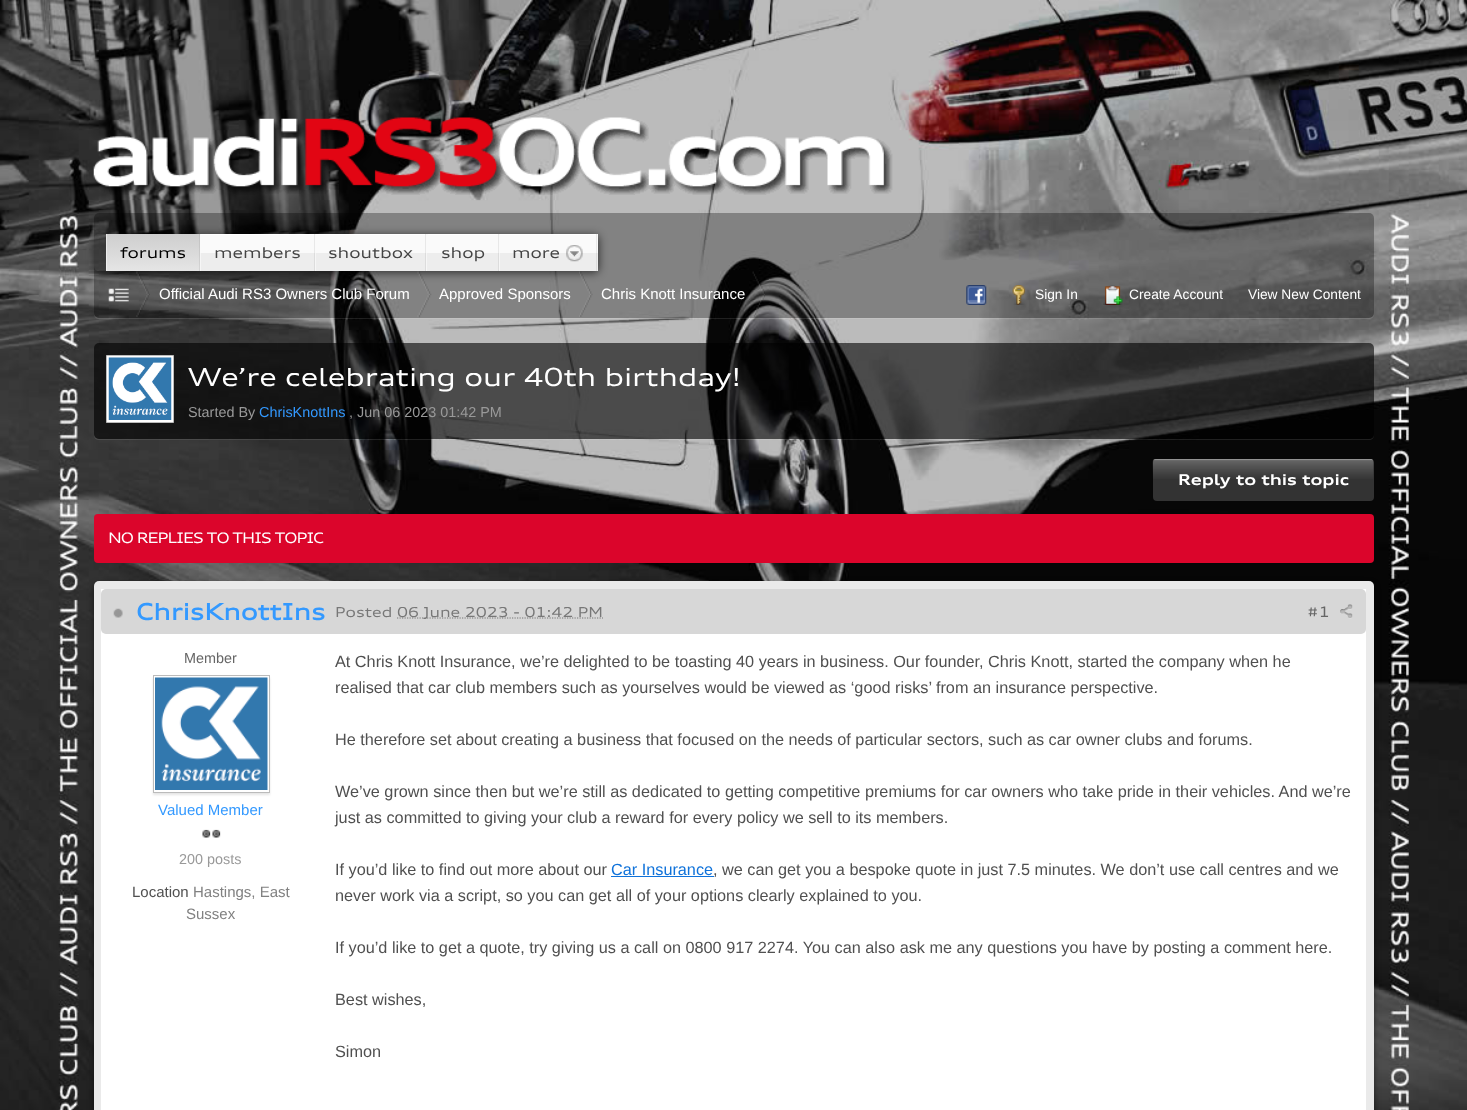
<!DOCTYPE html>
<meta charset="utf-8">
<style>body { margin: 0 } canvas { display: block }</style>
<canvas id="canvas" width="1467" height="1110"></canvas>
<img id="img1" src="images/1.png" hidden>
<img id="img2" src="images/2.png" hidden>
<img id="img3" src="images/3.png" hidden>
<img id="img4" src="images/4.png" hidden>
<img id="img5" src="images/5.png" hidden>
<img id="img6" src="images/6.png" hidden>
<img id="img7" src="images/7.png" hidden>
<img id="img8" src="images/8.png" hidden>
<img id="img9" src="images/9.png" hidden>
<img id="img10" src="images/10.png" hidden>
<img id="img11" src="images/11.png" hidden>
<img id="img12" src="images/12.png" hidden>
<img id="img13" src="images/13.png" hidden>
<img id="img14" src="images/14.png" hidden>
<img id="img15" src="images/15.png" hidden>
<img id="img16" src="images/16.png" hidden>
<img id="img17" src="images/17.png" hidden>
<script>
window.onload = function () {
    const canvas = document.getElementById('canvas');
    const context = canvas.getContext('2d');
    context.miterLimit = 4;
    context.fontKerning = 'normal';
    let gradient;

    context.fillStyle = 'rgb(255, 255, 255)';
    context.fillRect(0, 0, 1467, 1110);
    context.drawImage(document.getElementById('img1'), 0, 0, 1467, 1110);
    context.drawImage(document.getElementById('img2'), 93, 117, 800, 78);
    context.fillStyle = 'rgba(255, 255, 255, 0.1)';
    context.beginPath();
    context.moveTo(94, 314);
    context.bezierCurveTo(94, 317, 96, 319, 99, 319);
    context.lineTo(1369, 319);
    context.bezierCurveTo(1372, 319, 1374, 317, 1374, 314);
    context.lineTo(1374, 217);
    context.lineTo(1374, 312);
    context.bezierCurveTo(1374, 315, 1372, 318, 1369, 318);
    context.lineTo(99, 318);
    context.bezierCurveTo(97, 318, 95, 316, 94, 314);
    context.closePath();
    context.fill();
    context.fillStyle = 'rgba(0, 0, 0, 0.3)';
    context.beginPath();
    context.roundRect(94, 213, 1280, 105, 5);
    context.fill();
    context.save();
    context.beginPath();
    context.moveTo(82, 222);
    context.lineTo(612, 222);
    context.lineTo(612, 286);
    context.lineTo(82, 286);
    context.closePath();
    context.moveTo(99, 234);
    context.lineTo(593, 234);
    context.bezierCurveTo(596, 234, 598, 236, 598, 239);
    context.lineTo(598, 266);
    context.bezierCurveTo(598, 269, 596, 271, 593, 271);
    context.lineTo(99, 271);
    context.bezierCurveTo(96, 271, 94, 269, 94, 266);
    context.lineTo(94, 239);
    context.bezierCurveTo(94, 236, 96, 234, 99, 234);
    context.closePath();
    context.clip('evenodd');
    context.fillStyle = 'rgba(0, 0, 0, 0.6)';
    context.filter = 'blur(4px)';
    context.beginPath();
    context.roundRect(95, 235, 504, 38, 5);
    context.fill();
    context.filter = 'none';
    context.restore();
    gradient = context.createLinearGradient(153, 234, 153, 271);
    gradient.addColorStop(0, 'rgb(206, 206, 206)');
    gradient.addColorStop(1, 'rgb(229, 229, 229)');
    context.fillStyle = gradient;
    context.fillRect(106, 234, 94, 37);
    context.fillStyle = 'rgba(0, 0, 0, 0.07)';
    context.fillRect(199, 234, 1, 37);
    context.fillStyle = 'rgba(255, 255, 255, 0.5)';
    context.fillRect(106, 234, 1, 37);
    context.fillStyle = 'rgb(237, 237, 237)';
    context.fillRect(200, 253, 398, 18);
    context.fillStyle = 'rgb(250, 250, 250)';
    context.fillRect(200, 234, 398, 19);
    context.fillStyle = 'rgb(255, 255, 255)';
    context.fillRect(201, 234, 113, 1);
    context.fillStyle = 'rgba(0, 0, 0, 0.07)';
    context.fillRect(314, 234, 1, 37);
    context.fillStyle = 'rgba(255, 255, 255, 0.5)';
    context.fillRect(200, 253, 1, 18);
    context.fillStyle = 'rgb(255, 255, 255)';
    context.fillRect(316, 234, 109, 1);
    context.fillStyle = 'rgba(0, 0, 0, 0.07)';
    context.fillRect(425, 234, 1, 37);
    context.fillStyle = 'rgba(255, 255, 255, 0.5)';
    context.fillRect(315, 253, 1, 18);
    context.fillStyle = 'rgb(255, 255, 255)';
    context.fillRect(428, 234, 70, 1);
    context.fillStyle = 'rgba(0, 0, 0, 0.07)';
    context.fillRect(498, 234, 1, 37);
    context.fillStyle = 'rgba(255, 255, 255, 0.5)';
    context.fillRect(426, 253, 1, 18);
    context.fillStyle = 'rgb(255, 255, 255)';
    context.fillRect(500, 234, 96, 1);
    context.fillStyle = 'rgba(0, 0, 0, 0.07)';
    context.fillRect(596, 234, 1, 37);
    context.fillStyle = 'rgba(255, 255, 255, 0.5)';
    context.fillRect(499, 253, 1, 18);
    context.drawImage(document.getElementById('img3'), 566, 245, 17, 17);
    context.drawImage(document.getElementById('img4'), 136, 271, 14, 46);
    context.drawImage(document.getElementById('img5'), 108, 288, 21, 14);
    context.drawImage(document.getElementById('img6'), 417, 271, 15, 47);
    context.drawImage(document.getElementById('img7'), 579, 271, 14, 46);
    context.drawImage(document.getElementById('img8'), 752, 271, 13, 46);
    context.drawImage(document.getElementById('img9'), 966, 285, 21, 20);
    context.drawImage(document.getElementById('img10'), 1012, 285, 14, 20);
    context.drawImage(document.getElementById('img11'), 1103, 285, 20, 20);
    context.fillStyle = 'rgba(255, 255, 255, 0.1)';
    context.beginPath();
    context.moveTo(94, 435);
    context.bezierCurveTo(94, 438, 96, 440, 99, 440);
    context.lineTo(1369, 440);
    context.bezierCurveTo(1372, 440, 1374, 438, 1374, 435);
    context.lineTo(1374, 347);
    context.lineTo(1374, 434);
    context.bezierCurveTo(1374, 437, 1372, 439, 1369, 439);
    context.lineTo(99, 439);
    context.bezierCurveTo(97, 439, 95, 437, 94, 435);
    context.closePath();
    context.fill();
    context.fillStyle = 'rgba(0, 0, 0, 0.6)';
    context.beginPath();
    context.roundRect(94, 343, 1280, 96, 5);
    context.fill();
    context.fillStyle = 'rgb(255, 255, 255)';
    context.beginPath();
    context.rect(106.5, 355.5, 67, 67);
    context.fill();
    context.strokeStyle = 'rgb(187, 187, 187)';
    context.stroke();
    context.drawImage(document.getElementById('img12'), 108, 357, 64, 63);
    context.fillStyle = 'rgb(51, 51, 51)';
    context.beginPath();
    context.roundRect(1153, 459, 221, 42, 4);
    context.fill();
    context.drawImage(document.getElementById('img13'), 1152, 459, 222, 20);
    context.fillStyle = 'rgb(219, 5, 43)';
    context.beginPath();
    context.roundRect(94, 514, 1280, 49, 4);
    context.fill();
    context.fillStyle = 'rgba(0, 0, 0, 0.5)';
    context.filter = 'blur(3px)';
    context.beginPath();
    context.roundRect(94, 584, 1280, 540, 5);
    context.fill();
    context.filter = 'none';
    context.fillStyle = 'rgb(234, 234, 234)';
    context.beginPath();
    context.roundRect(94, 581, 1280, 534, 5);
    context.fill();
    context.fillStyle = 'rgb(255, 255, 255)';
    context.fillRect(101, 589, 1265, 521);
    context.fillStyle = 'rgb(215, 215, 215)';
    context.beginPath();
    context.roundRect(101, 589, 1265, 45, 5);
    context.fill();
    context.drawImage(document.getElementById('img14'), 113, 608, 10, 10);
    context.beginPath();
    context.moveTo(397, 618);
    context.lineTo(603, 618);
    context.strokeStyle = 'rgb(119, 119, 119)';
    context.lineWidth = 1.2;
    context.setLineDash([1.25, 1.25]);
    context.stroke();
    context.drawImage(document.getElementById('img15'), 1340, 604, 13, 15);
    context.fillStyle = 'rgba(0, 0, 0, 0.1)';
    context.filter = 'blur(1px)';
    context.beginPath();
    context.rect(153, 678, 117, 117);
    context.fill();
    context.filter = 'none';
    context.fillStyle = 'rgb(255, 255, 255)';
    context.fillRect(154, 677, 115, 115);
    context.strokeStyle = 'rgb(187, 187, 187)';
    context.lineWidth = 1;
    context.setLineDash([]);
    context.strokeRect(153.5, 675.5, 116, 117);
    context.drawImage(document.getElementById('img16'), 155, 677, 113, 113);
    context.drawImage(document.getElementById('img17'), 202, 829, 9, 9);
    context.drawImage(document.getElementById('img17'), 212, 829, 9, 9);
    context.fillStyle = 'rgb(15, 114, 218)';
    context.fillRect(611, 876, 103, 1);
    context.font = '15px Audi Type';
    context.fillStyle = 'rgb(0, 0, 0)';
    context.fillText('forums', 120, 258);
    context.fillStyle = 'rgb(68, 68, 68)';
    context.fillText('members', 214, 258);
    context.fillText('shoutbox', 328, 258);
    context.fillText('shop', 441, 258);
    context.fillText('more', 512, 258);
    context.font = '15px Liberation Sans';
    context.fillStyle = 'rgb(255, 255, 255)';
    context.fillText('Official Audi RS3 Owners Club Forum', 159, 299);
    context.fillText('Approved Sponsors', 439, 299);
    context.fillText('Chris Knott Insurance', 601, 299);
    context.font = '13.75px Liberation Sans';
    context.fillText('Sign In', 1035, 299);
    context.fillText('Create Account', 1129, 299);
    context.fillText('View New Content', 1248, 299);
    context.font = '25px Audi Type';
    context.fillText('We’re celebrating our 40th birthday!', 188, 386);
    context.font = '14.4px Liberation Sans';
    context.fillStyle = 'rgb(153, 153, 153)';
    context.fillText('Started By', 188, 417);
    context.fillStyle = 'rgb(51, 153, 255)';
    context.fillText('ChrisKnottIns', 259, 417);
    context.fillStyle = 'rgb(153, 153, 153)';
    context.fillText(', Jun 06 2023 01:42 PM', 349, 417);
    context.font = 'bold 15px Audi Type';
    context.fillStyle = 'rgb(255, 255, 255)';
    context.fillText('Reply to this topic', 1178, 485);
    context.letterSpacing = '-1px';
    context.font = '14.4px Audi Type';
    context.fillText('NO REPLIES TO THIS TOPIC', 108, 543);
    context.letterSpacing = '0px';
    context.font = 'bold 22.5px "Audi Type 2"';
    context.fillStyle = 'rgb(51, 153, 255)';
    context.fillText('ChrisKnottIns', 136, 620);
    context.font = '13.75px Audi Type';
    context.fillStyle = 'rgb(119, 119, 119)';
    context.fillText('Posted', 335, 617);
    context.fillText('06 June 2023 - 01:42 PM', 397, 617);
    context.font = '14.4px Audi Type';
    context.fillStyle = 'rgb(102, 102, 102)';
    context.fillText('#1', 1307, 617);
    context.font = '14.4px Liberation Sans';
    context.fillText('Member', 184, 663);
    context.font = '15px Liberation Sans';
    context.fillStyle = 'rgb(51, 153, 255)';
    context.fillText('Valued Member', 158, 815);
    context.font = '14.4px Liberation Sans';
    context.fillStyle = 'rgb(153, 153, 153)';
    context.fillText('200 posts', 179, 864);
    context.font = '15px Liberation Sans';
    context.fillStyle = 'rgb(80, 80, 80)';
    context.fillText('Location', 132, 897);
    context.fillStyle = 'rgb(129, 129, 129)';
    context.fillText('Hastings, East', 193, 897);
    context.fillText('Sussex', 186, 919);
    context.font = '16.25px Liberation Sans';
    context.fillStyle = 'rgb(80, 80, 80)';
    context.fillText('At Chris Knott Insurance, we’re delighted to be toasting 40 years in business. Our founder, Chris Knott, started the company when he', 335, 667);
    context.fillText('realised that car club members such as yourselves would be viewed as ‘good risks’ from an insurance perspective.', 335, 693);
    context.fillText('He therefore set about creating a business that focused on the needs of particular sectors, such as car owner clubs and forums.', 335, 745);
    context.fillText('We’ve grown since then but we’re still as dedicated to getting competitive premiums for car owners who take pride in their vehicles. And we’re', 335, 797);
    context.fillText('just as committed to giving your club a reward for every policy we sell to its members.', 335, 823);
    context.fillText('If you’d like to find out more about our', 335, 875);
    context.fillStyle = 'rgb(15, 114, 218)';
    context.fillText('Car Insurance', 611, 875);
    context.fillStyle = 'rgb(80, 80, 80)';
    context.fillText(', we can get you a bespoke quote in just 7.5 minutes. We don’t use call centres and we', 713, 875);
    context.fillText('never work via a script, so you can get all of your options clearly explained to you.', 335, 901);
    context.fillText('If you’d like to get a quote, try giving us a call on 0800 917 2274. You can also ask me any questions you have by posting a comment here.', 335, 953);
    context.fillText('Best wishes,', 335, 1005);
    context.fillText('Simon', 335, 1057);
};
</script>
